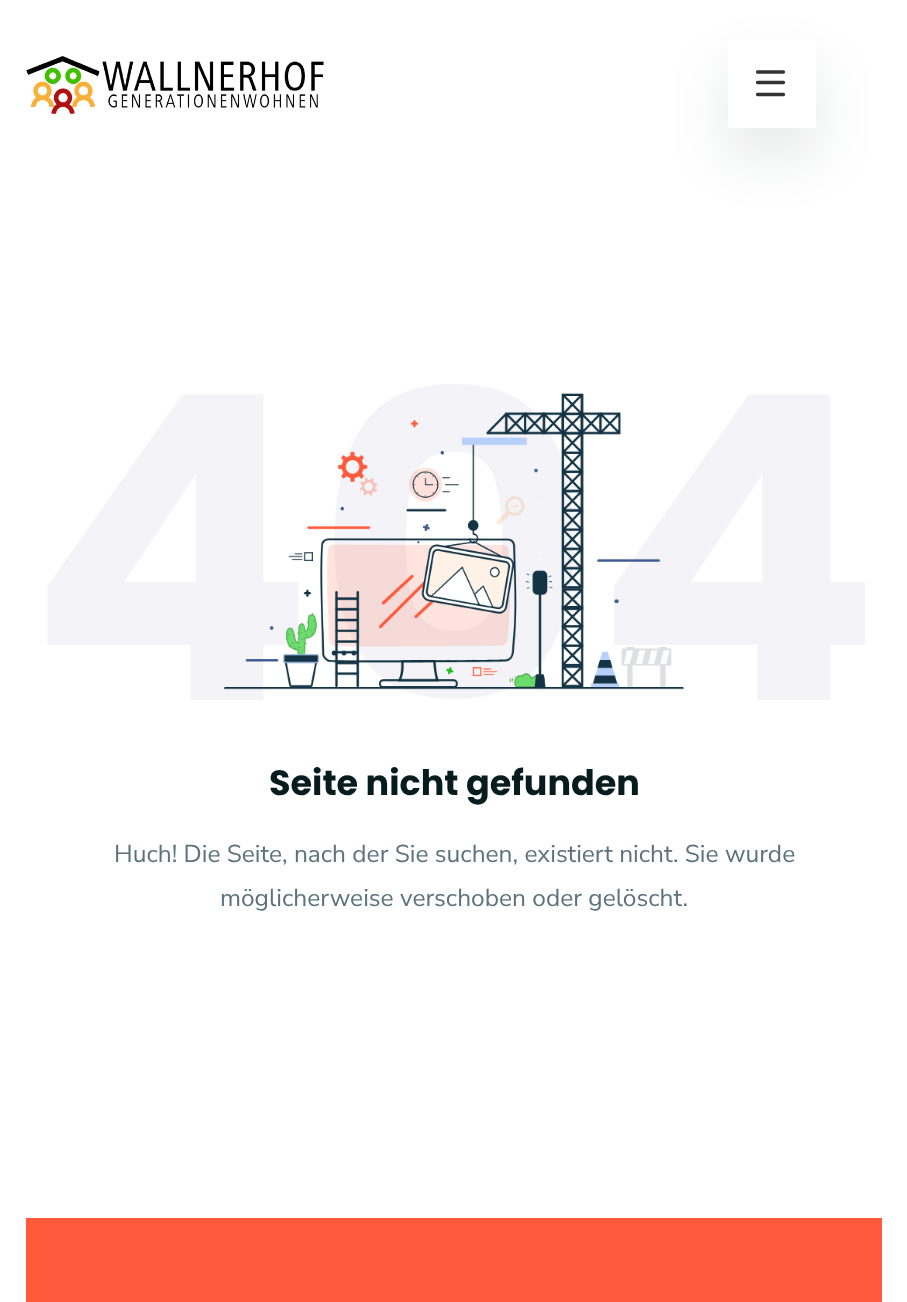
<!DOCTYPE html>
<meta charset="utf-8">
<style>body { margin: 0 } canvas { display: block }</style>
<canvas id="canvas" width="907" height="1302"></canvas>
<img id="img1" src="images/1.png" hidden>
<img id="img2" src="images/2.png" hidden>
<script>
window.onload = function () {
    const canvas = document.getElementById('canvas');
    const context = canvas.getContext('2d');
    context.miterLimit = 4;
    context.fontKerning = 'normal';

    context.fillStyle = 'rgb(255, 255, 255)';
    context.fillRect(0, 0, 907, 1302);
    context.drawImage(document.getElementById('img1'), 26, 56, 298, 58);
    context.fillStyle = 'rgba(7, 28, 31, 0.1)';
    context.filter = 'blur(28px)';
    context.beginPath();
    context.rect(728, 68, 88, 88);
    context.fill();
    context.filter = 'none';
    context.fillStyle = 'rgb(255, 255, 255)';
    context.fillRect(728, 40, 88, 88);
    context.beginPath();
    context.moveTo(757.5, 72);
    context.lineTo(783.5, 72);
    context.moveTo(757.5, 82.5);
    context.lineTo(783.5, 82.5);
    context.moveTo(757.5, 94.5);
    context.lineTo(783.5, 94.5);
    context.strokeStyle = 'rgb(51, 51, 51)';
    context.lineWidth = 3.3;
    context.lineCap = 'round';
    context.stroke();
    context.drawImage(document.getElementById('img2'), 47, 384, 818, 316);
    context.fillStyle = 'rgb(255, 90, 60)';
    context.fillRect(26, 1218, 856, 84);
    context.font = 'bold 35px Poppins';
    context.fillStyle = 'rgb(7, 28, 31)';
    context.fillText('Seite nicht gefunden', 269, 795);
    context.font = '200 24.5px Nunito Sans';
    context.fillStyle = 'rgb(92, 114, 125)';
    context.fillText('Huch! Die Seite, nach der Sie suchen, existiert nicht. Sie wurde', 114, 862);
    context.fillText('möglicherweise verschoben oder gelöscht.', 220, 906);
};
</script>
